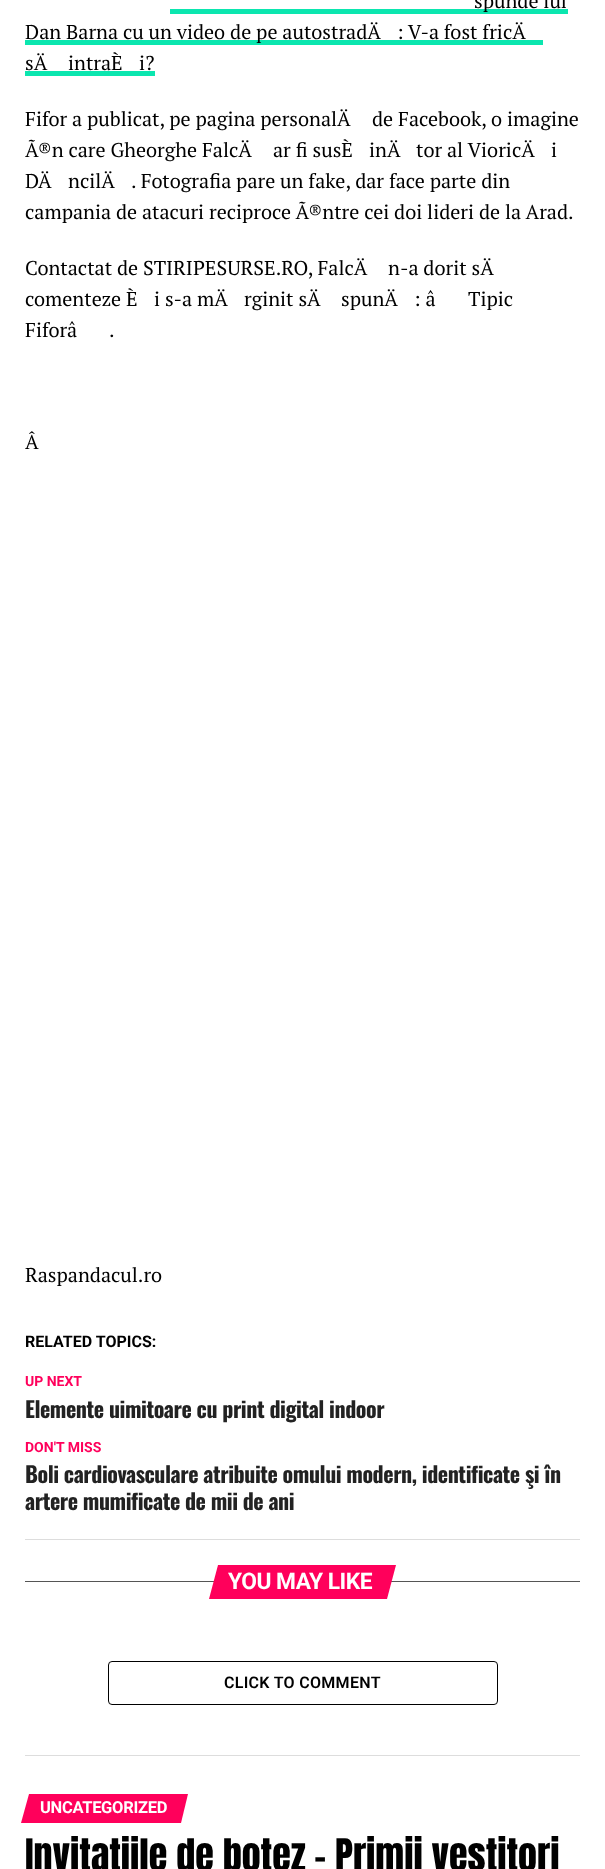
<!DOCTYPE html>
<meta charset="utf-8">
<style>body { margin: 0 } canvas { display: block }</style>
<canvas id="canvas" width="605" height="1869"></canvas>
<script>
window.onload = function () {
    const canvas = document.getElementById('canvas');
    const context = canvas.getContext('2d');
    context.miterLimit = 4;
    context.fontKerning = 'normal';

    context.fillStyle = 'rgb(255, 255, 255)';
    context.fillRect(0, 0, 605, 1869);
    context.fillStyle = 'rgb(11, 230, 175)';
    context.fillRect(170, 9, 398, 5);
    context.fillRect(25, 40, 518, 5);
    context.fillRect(25, 71, 130, 5);
    context.fillStyle = 'rgb(221, 221, 221)';
    context.fillRect(25, 1539, 555, 1);
    context.fillStyle = 'rgb(85, 85, 85)';
    context.fillRect(25, 1581, 555, 1);
    context.fillStyle = 'rgb(255, 0, 91)';
    context.beginPath();
    context.moveTo(218, 1565);
    context.lineTo(396, 1565);
    context.lineTo(387, 1599);
    context.lineTo(209, 1599);
    context.closePath();
    context.fill();
    context.beginPath();
    context.roundRect(108.5, 1661.5, 389, 43, 3.5);
    context.strokeStyle = 'rgb(0, 0, 0)';
    context.stroke();
    context.fillStyle = 'rgb(221, 221, 221)';
    context.fillRect(25, 1755, 555, 1);
    context.fillStyle = 'rgb(255, 0, 91)';
    context.beginPath();
    context.moveTo(29, 1794);
    context.lineTo(188, 1794);
    context.lineTo(181, 1823);
    context.lineTo(21, 1823);
    context.closePath();
    context.fill();
    context.font = '20px PT Serif';
    context.fillStyle = 'rgb(0, 0, 0)';
    context.fillText('spunde lui', 474, 8);
    context.fillText('Dan Barna cu un video de pe autostradÄ', 25, 39);
    context.fillText(': V-a fost fricÄ', 397, 39);
    context.fillText('sÄ', 25, 70);
    context.fillText('intraÈ', 68, 70);
    context.fillText('i?', 139, 70);
    context.fillText('Fifor a publicat, pe pagina personalÄ', 25, 126);
    context.fillText('de Facebook, o imagine', 372, 126);
    context.fillText('Ã®n care Gheorghe FalcÄ', 25, 157);
    context.fillText('ar fi susÈ', 273, 157);
    context.fillText('inÄ', 369, 157);
    context.fillText('tor al VioricÄ', 416, 157);
    context.fillText('i', 551, 157);
    context.fillText('DÄ', 25, 188);
    context.fillText('ncilÄ', 68, 188);
    context.fillText('. Fotografia pare un fake, dar face parte din', 131, 188);
    context.fillText('campania de atacuri reciproce Ã®ntre cei doi lideri de la Arad.', 25, 219);
    context.fillText('Contactat de STIRIPESURSE.RO, FalcÄ', 25, 275);
    context.fillText('n-a dorit sÄ', 388, 275);
    context.fillText('comenteze È', 25, 306);
    context.fillText('i s-a mÄ', 154, 306);
    context.fillText('rginit sÄ', 244, 306);
    context.fillText('spunÄ', 341, 306);
    context.fillText(': â', 414, 306);
    context.fillText('Tipic', 468, 306);
    context.fillText('Fiforâ', 25, 337);
    context.fillText('.', 109, 337);
    context.fillText('Â', 25, 449);
    context.fillText('Raspandacul.ro', 25, 1282);
    context.font = 'bold 16px Roboto';
    context.fillText('RELATED TOPICS:', 25, 1347);
    context.font = 'bold 14px Roboto';
    context.fillStyle = 'rgb(255, 0, 91)';
    context.fillText('UP NEXT', 25, 1386);
    context.letterSpacing = '-0.45px';
    context.font = 'bold 22px Oswald';
    context.fillStyle = 'rgb(34, 34, 34)';
    context.fillText('Elemente uimitoare cu print digital indoor', 25, 1418);
    context.letterSpacing = '0px';
    context.font = 'bold 14px Roboto';
    context.fillStyle = 'rgb(255, 0, 91)';
    context.fillText('DON\'T MISS', 25, 1452);
    context.letterSpacing = '-0.45px';
    context.font = 'bold 22px Oswald';
    context.fillStyle = 'rgb(34, 34, 34)';
    context.fillText('Boli cardiovasculare atribuite omului modern, identificate şi în', 25, 1483);
    context.fillText('artere mumificate de mii de ani', 25, 1510);
    context.letterSpacing = '-0.5px';
    context.font = 'bold 22.75px Roboto';
    context.fillStyle = 'rgb(255, 255, 255)';
    context.fillText('YOU MAY LIKE', 228, 1589);
    context.letterSpacing = '0.3px';
    context.font = '600 16px Roboto';
    context.fillStyle = 'rgb(0, 0, 0)';
    context.fillText('CLICK TO COMMENT', 224, 1688);
    context.letterSpacing = '-0.3px';
    context.font = 'bold 16.5px Roboto';
    context.fillStyle = 'rgb(255, 255, 255)';
    context.fillText('UNCATEGORIZED', 40, 1813);
    context.letterSpacing = '0px';
    context.font = '38px Anton';
    context.fillStyle = 'rgb(0, 0, 0)';
    context.fillText('Invitațiile de botez – Primii vestitori', 25, 1871);
};
</script>
